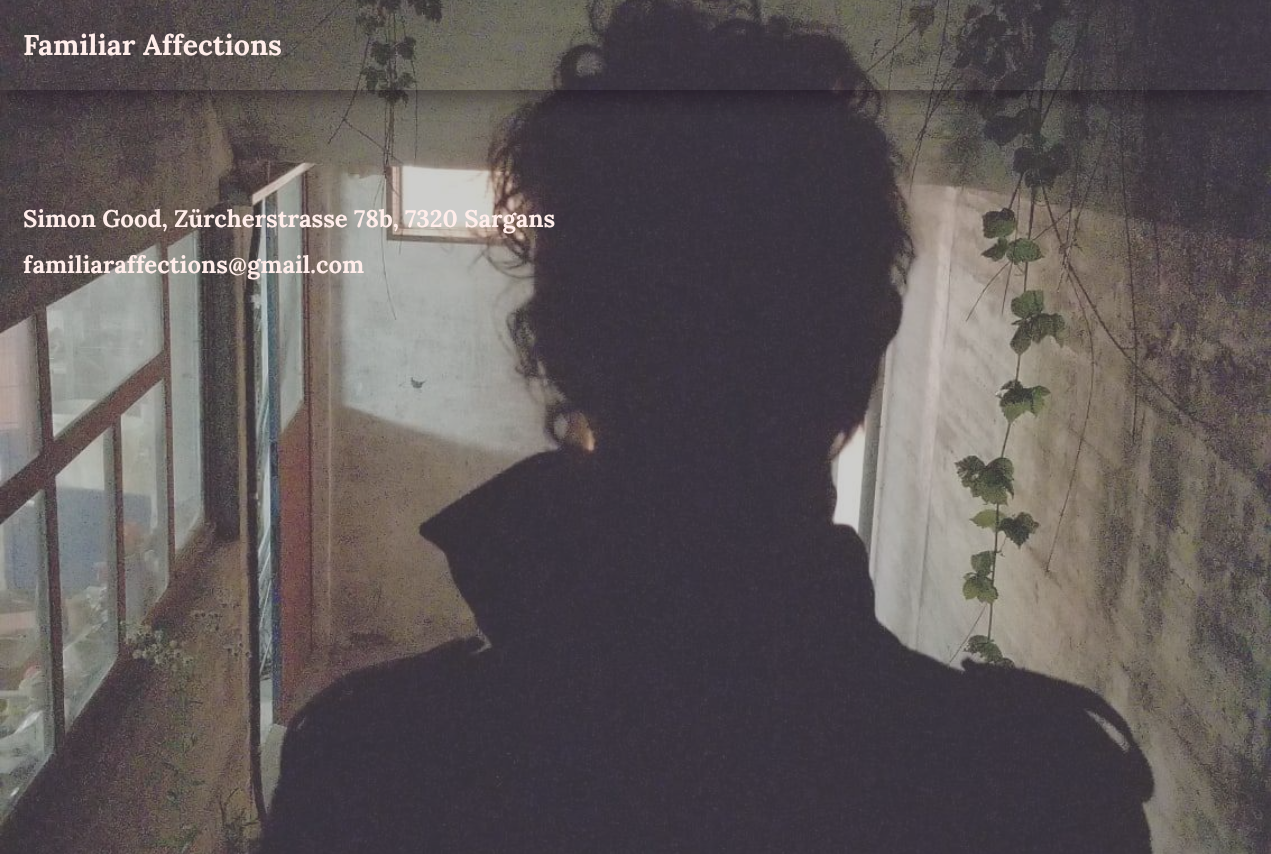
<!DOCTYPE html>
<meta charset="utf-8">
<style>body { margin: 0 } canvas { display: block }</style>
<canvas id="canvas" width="1271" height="854"></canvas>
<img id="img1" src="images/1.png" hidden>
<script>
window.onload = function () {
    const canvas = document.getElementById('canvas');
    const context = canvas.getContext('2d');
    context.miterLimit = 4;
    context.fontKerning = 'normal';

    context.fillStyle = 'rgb(255, 255, 255)';
    context.fillRect(0, 0, 1271, 854);
    context.drawImage(document.getElementById('img1'), 0, 0, 1271, 854);
    context.save();
    context.beginPath();
    context.rect(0, 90, 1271, 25);
    context.clip();
    context.fillStyle = 'rgba(12, 0, 16, 0.4)';
    context.filter = 'blur(10.5px)';
    context.beginPath();
    context.rect(-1, 8, 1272, 90);
    context.fill();
    context.filter = 'none';
    context.restore();
    context.font = 'bold 28.5px Lora';
    context.fillStyle = 'rgb(255, 237, 234)';
    context.fillText('Familiar Affections', 23, 55);
    context.font = 'bold 24px Lora';
    context.fillText('Simon Good, Zürcherstrasse 78b, 7320 Sargans', 23, 227);
    context.fillText('familiaraffections@gmail.com', 23, 273);
};
</script>
